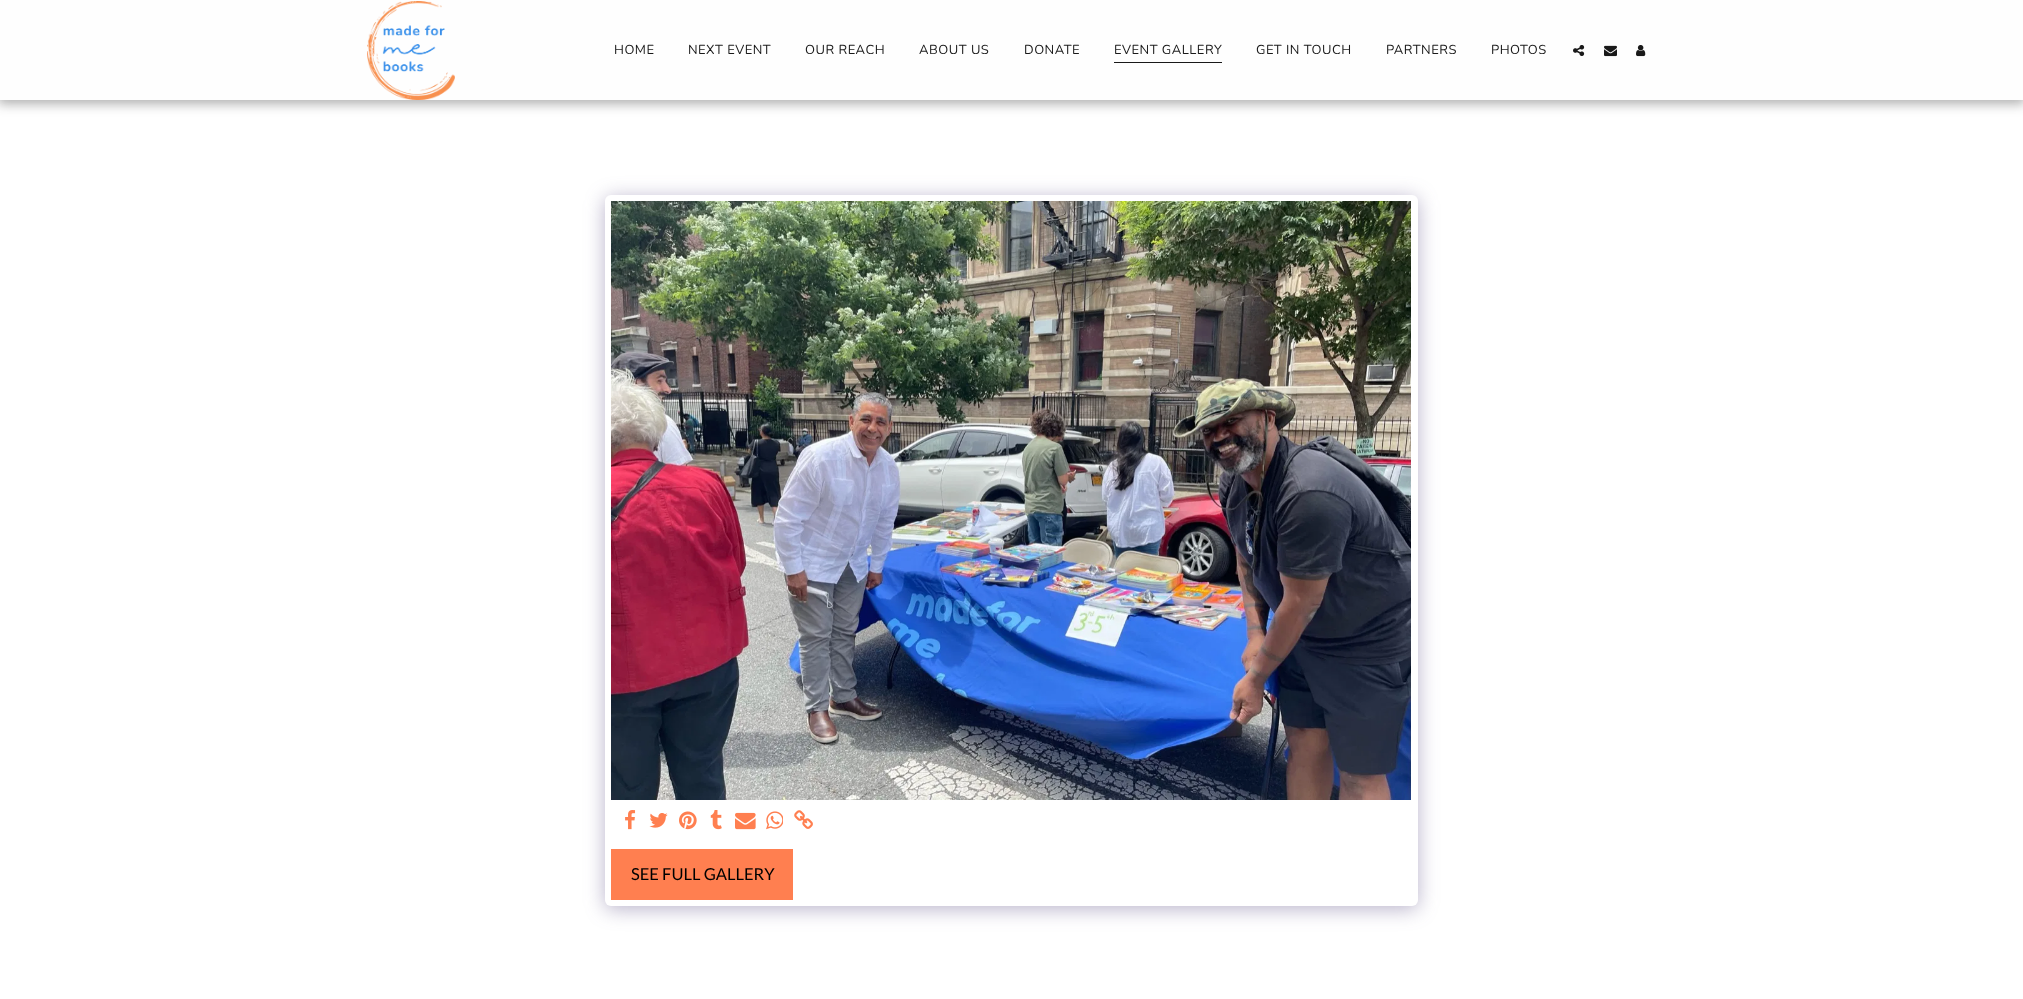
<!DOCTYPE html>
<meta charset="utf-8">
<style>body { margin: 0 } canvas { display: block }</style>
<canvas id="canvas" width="2023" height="999"></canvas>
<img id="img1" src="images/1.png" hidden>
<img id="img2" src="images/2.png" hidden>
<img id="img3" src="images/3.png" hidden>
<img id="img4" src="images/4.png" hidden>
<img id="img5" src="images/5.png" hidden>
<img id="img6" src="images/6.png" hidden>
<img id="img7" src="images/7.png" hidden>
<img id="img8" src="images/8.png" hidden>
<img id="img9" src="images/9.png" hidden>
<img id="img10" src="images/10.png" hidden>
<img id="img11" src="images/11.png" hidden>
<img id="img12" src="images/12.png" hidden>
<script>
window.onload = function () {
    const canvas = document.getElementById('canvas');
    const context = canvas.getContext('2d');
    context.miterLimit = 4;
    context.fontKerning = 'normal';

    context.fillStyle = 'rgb(255, 255, 255)';
    context.fillRect(0, 0, 2023, 999);
    context.fillStyle = 'rgba(26, 26, 26, 0.35)';
    context.filter = 'blur(6px)';
    context.beginPath();
    context.rect(-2, 0, 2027, 104);
    context.fill();
    context.filter = 'none';
    context.fillStyle = 'rgb(254, 254, 254)';
    context.fillRect(0, 0, 2023, 100);
    context.drawImage(document.getElementById('img1'), 367, 1, 88, 99);
    context.fillStyle = 'rgb(25, 25, 25)';
    context.fillRect(1114, 62, 108, 1);
    context.drawImage(document.getElementById('img2'), 1573, 45, 12, 11);
    context.drawImage(document.getElementById('img3'), 1604, 45, 13, 12);
    context.drawImage(document.getElementById('img4'), 1636, 45, 10, 12);
    context.fillStyle = 'rgba(77, 63, 122, 0.4)';
    context.filter = 'blur(10px)';
    context.beginPath();
    context.roundRect(605, 198, 813, 711, 6);
    context.fill();
    context.filter = 'none';
    context.fillStyle = 'rgb(255, 255, 255)';
    context.beginPath();
    context.roundRect(605, 195, 813, 711, 6);
    context.fill();
    context.drawImage(document.getElementById('img5'), 611, 201, 800, 599);
    context.drawImage(document.getElementById('img6'), 625, 810, 11, 20);
    context.drawImage(document.getElementById('img7'), 649, 813, 19, 15);
    context.drawImage(document.getElementById('img8'), 679, 811, 18, 19);
    context.drawImage(document.getElementById('img9'), 710, 810, 12, 20);
    context.drawImage(document.getElementById('img10'), 735, 812, 21, 18);
    context.drawImage(document.getElementById('img11'), 766, 811, 17, 19);
    context.drawImage(document.getElementById('img12'), 794, 810, 19, 19);
    context.fillStyle = 'rgb(255, 127, 80)';
    context.fillRect(611, 849, 182, 51);
    context.letterSpacing = '0.5px';
    context.font = '13px Nunito';
    context.fillStyle = 'rgb(25, 25, 25)';
    context.fillText('HOME', 614, 54);
    context.fillText('NEXT EVENT', 688, 54);
    context.fillText('OUR REACH', 805, 54);
    context.fillText('ABOUT US', 919, 54);
    context.fillText('DONATE', 1024, 54);
    context.fillText('EVENT GALLERY', 1114, 54);
    context.fillText('GET IN TOUCH', 1256, 54);
    context.fillText('PARTNERS', 1386, 54);
    context.fillText('PHOTOS', 1491, 54);
    context.letterSpacing = '0px';
    context.font = '16.5px Lato';
    context.fillStyle = 'rgb(0, 0, 0)';
    context.fillText('SEE FULL GALLERY', 631, 880);
};
</script>
